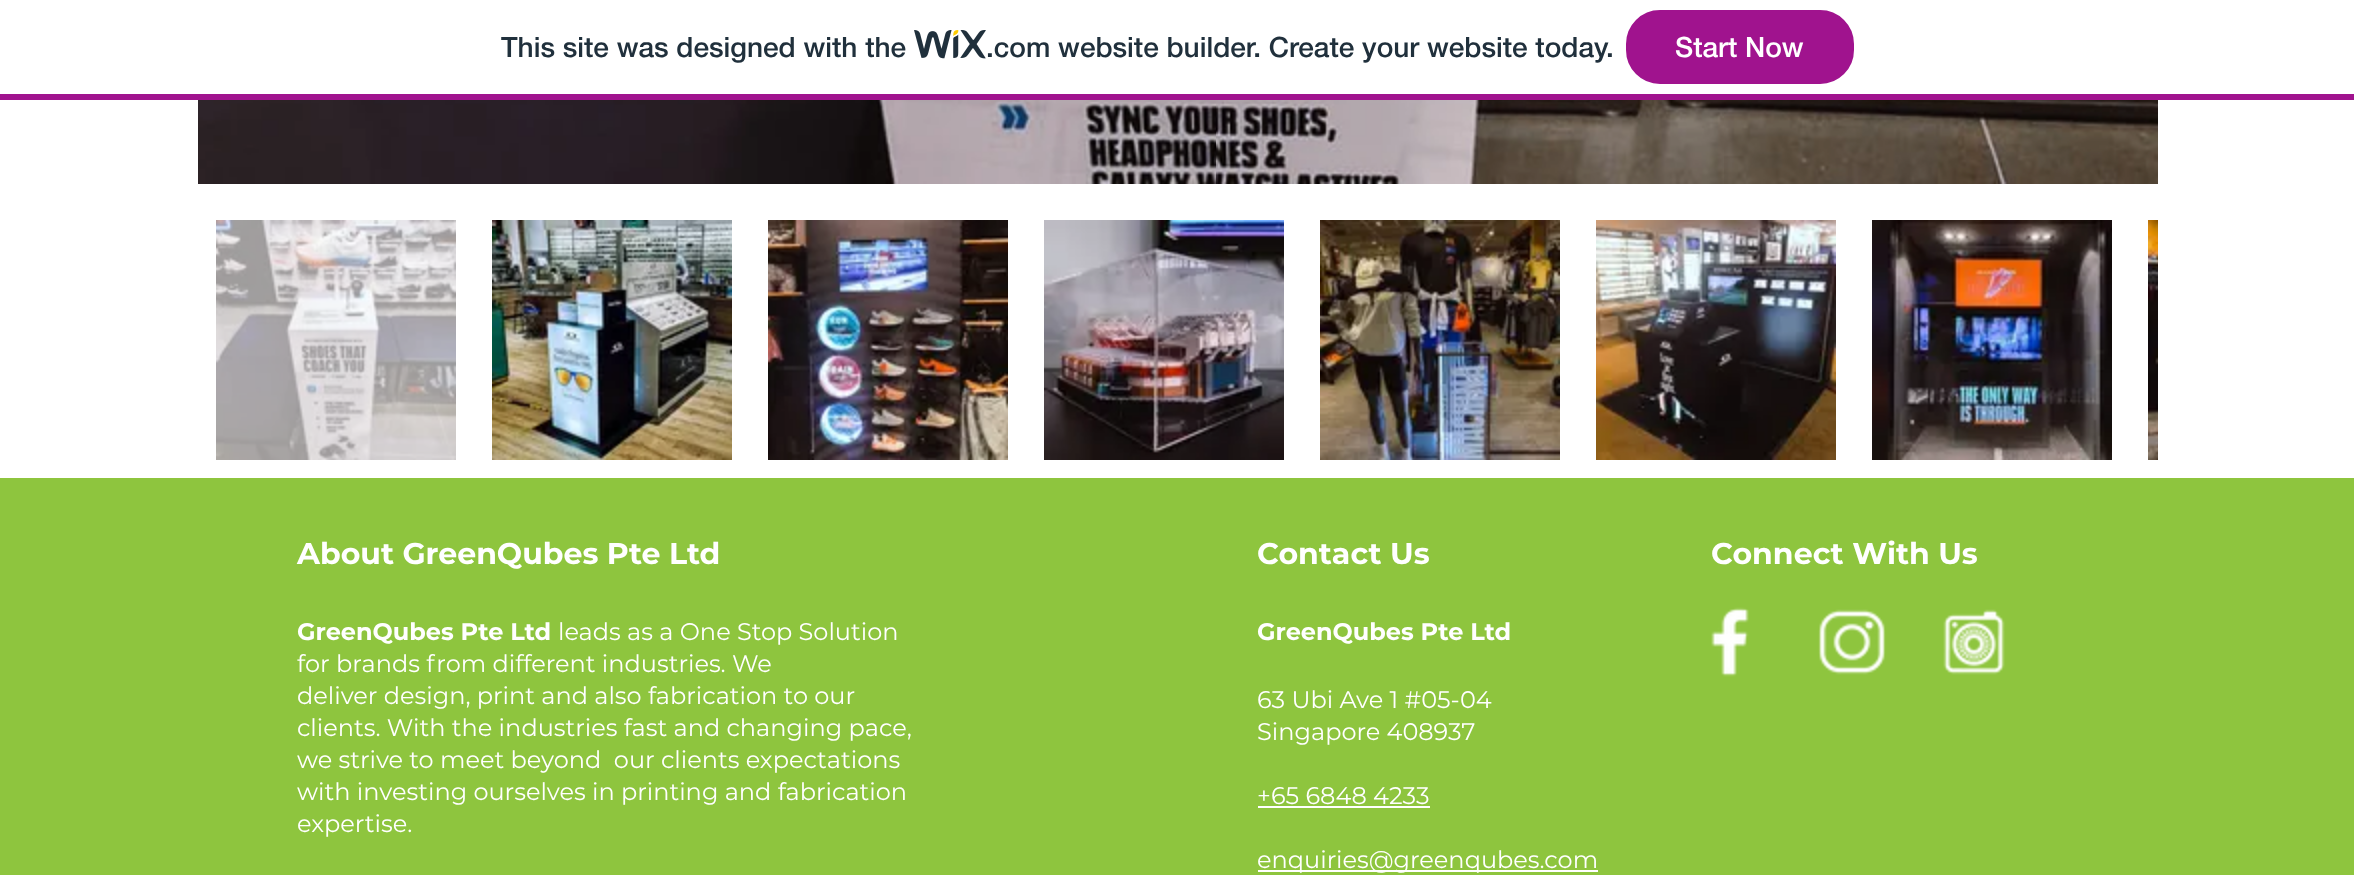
<!DOCTYPE html>
<meta charset="utf-8">
<style>body { margin: 0 } canvas { display: block }</style>
<canvas id="canvas" width="2354" height="875"></canvas>
<img id="img1" src="images/1.png" hidden>
<img id="img2" src="images/2.png" hidden>
<img id="img3" src="images/3.png" hidden>
<img id="img4" src="images/4.png" hidden>
<img id="img5" src="images/5.png" hidden>
<img id="img6" src="images/6.png" hidden>
<img id="img7" src="images/7.png" hidden>
<img id="img8" src="images/8.png" hidden>
<img id="img9" src="images/9.png" hidden>
<img id="img10" src="images/10.png" hidden>
<img id="img11" src="images/11.png" hidden>
<img id="img12" src="images/12.png" hidden>
<img id="img13" src="images/13.png" hidden>
<script>
window.onload = function () {
    const canvas = document.getElementById('canvas');
    const context = canvas.getContext('2d');
    context.miterLimit = 4;
    context.fontKerning = 'normal';

    context.fillStyle = 'rgb(255, 255, 255)';
    context.fillRect(0, 0, 2354, 875);
    context.fillStyle = 'rgb(160, 19, 142)';
    context.fillRect(0, 94, 2354, 6);
    context.drawImage(document.getElementById('img1'), 914, 30, 72, 29);
    context.beginPath();
    context.roundRect(1627, 11, 226, 72, 33);
    context.fill();
    context.strokeStyle = 'rgb(160, 19, 142)';
    context.lineWidth = 2;
    context.stroke();
    context.drawImage(document.getElementById('img2'), 198, 100, 1960, 84);
    context.drawImage(document.getElementById('img3'), 216, 220, 240, 240);
    context.drawImage(document.getElementById('img4'), 492, 220, 240, 240);
    context.drawImage(document.getElementById('img5'), 768, 220, 240, 240);
    context.drawImage(document.getElementById('img6'), 1044, 220, 240, 240);
    context.drawImage(document.getElementById('img7'), 1320, 220, 240, 240);
    context.drawImage(document.getElementById('img8'), 1596, 220, 240, 240);
    context.drawImage(document.getElementById('img9'), 1872, 220, 240, 240);
    context.drawImage(document.getElementById('img10'), 2148, 220, 10, 240);
    context.fillStyle = 'rgb(142, 197, 62)';
    context.fillRect(0, 478, 2354, 397);
    context.fillStyle = 'rgb(255, 255, 255)';
    context.fillRect(1258, 806, 172, 2);
    context.fillRect(1258, 870, 340, 2);
    context.drawImage(document.getElementById('img11'), 1711, 607, 38, 70);
    context.drawImage(document.getElementById('img12'), 1818, 609, 68, 66);
    context.drawImage(document.getElementById('img13'), 1943, 609, 62, 66);
    context.font = '500 28px "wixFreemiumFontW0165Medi"';
    context.fillStyle = 'rgb(32, 48, 60)';
    context.fillText('This site was designed with the', 501, 57);
    context.fillText('.com website builder. Create your website today.', 986, 57);
    context.fillStyle = 'rgb(255, 255, 255)';
    context.fillText('Start Now', 1675, 57);
    context.font = 'bold 30px Montserrat';
    context.fillText('About GreenQubes Pte Ltd', 297, 564);
    context.font = 'bold 24px Montserrat';
    context.fillText('GreenQubes Pte Ltd', 297, 640);
    context.font = '24px Montserrat';
    context.fillText('leads as a One Stop Solution', 558, 640);
    context.fillText('for brands from different industries. We', 297, 672);
    context.fillText('deliver design, print and also fabrication to our', 297, 704);
    context.fillText('clients. With the industries fast and changing pace,', 297, 736);
    context.fillText('we strive to meet beyond  our clients expectations', 297, 768);
    context.fillText('with investing ourselves in printing and fabrication', 297, 800);
    context.fillText('expertise.', 297, 832);
    context.font = 'bold 30px Montserrat';
    context.fillText('Contact Us', 1257, 564);
    context.font = 'bold 24px Montserrat';
    context.fillText('GreenQubes Pte Ltd', 1257, 640);
    context.font = '24px Montserrat';
    context.fillText('63 Ubi Ave 1 #05-04', 1257, 708);
    context.fillText('Singapore 408937', 1257, 740);
    context.fillText('+65 6848 4233', 1257, 804);
    context.fillText('enquiries@greenqubes.com', 1257, 868);
    context.font = 'bold 30px Montserrat';
    context.fillText('Connect With Us', 1711, 564);
};
</script>
